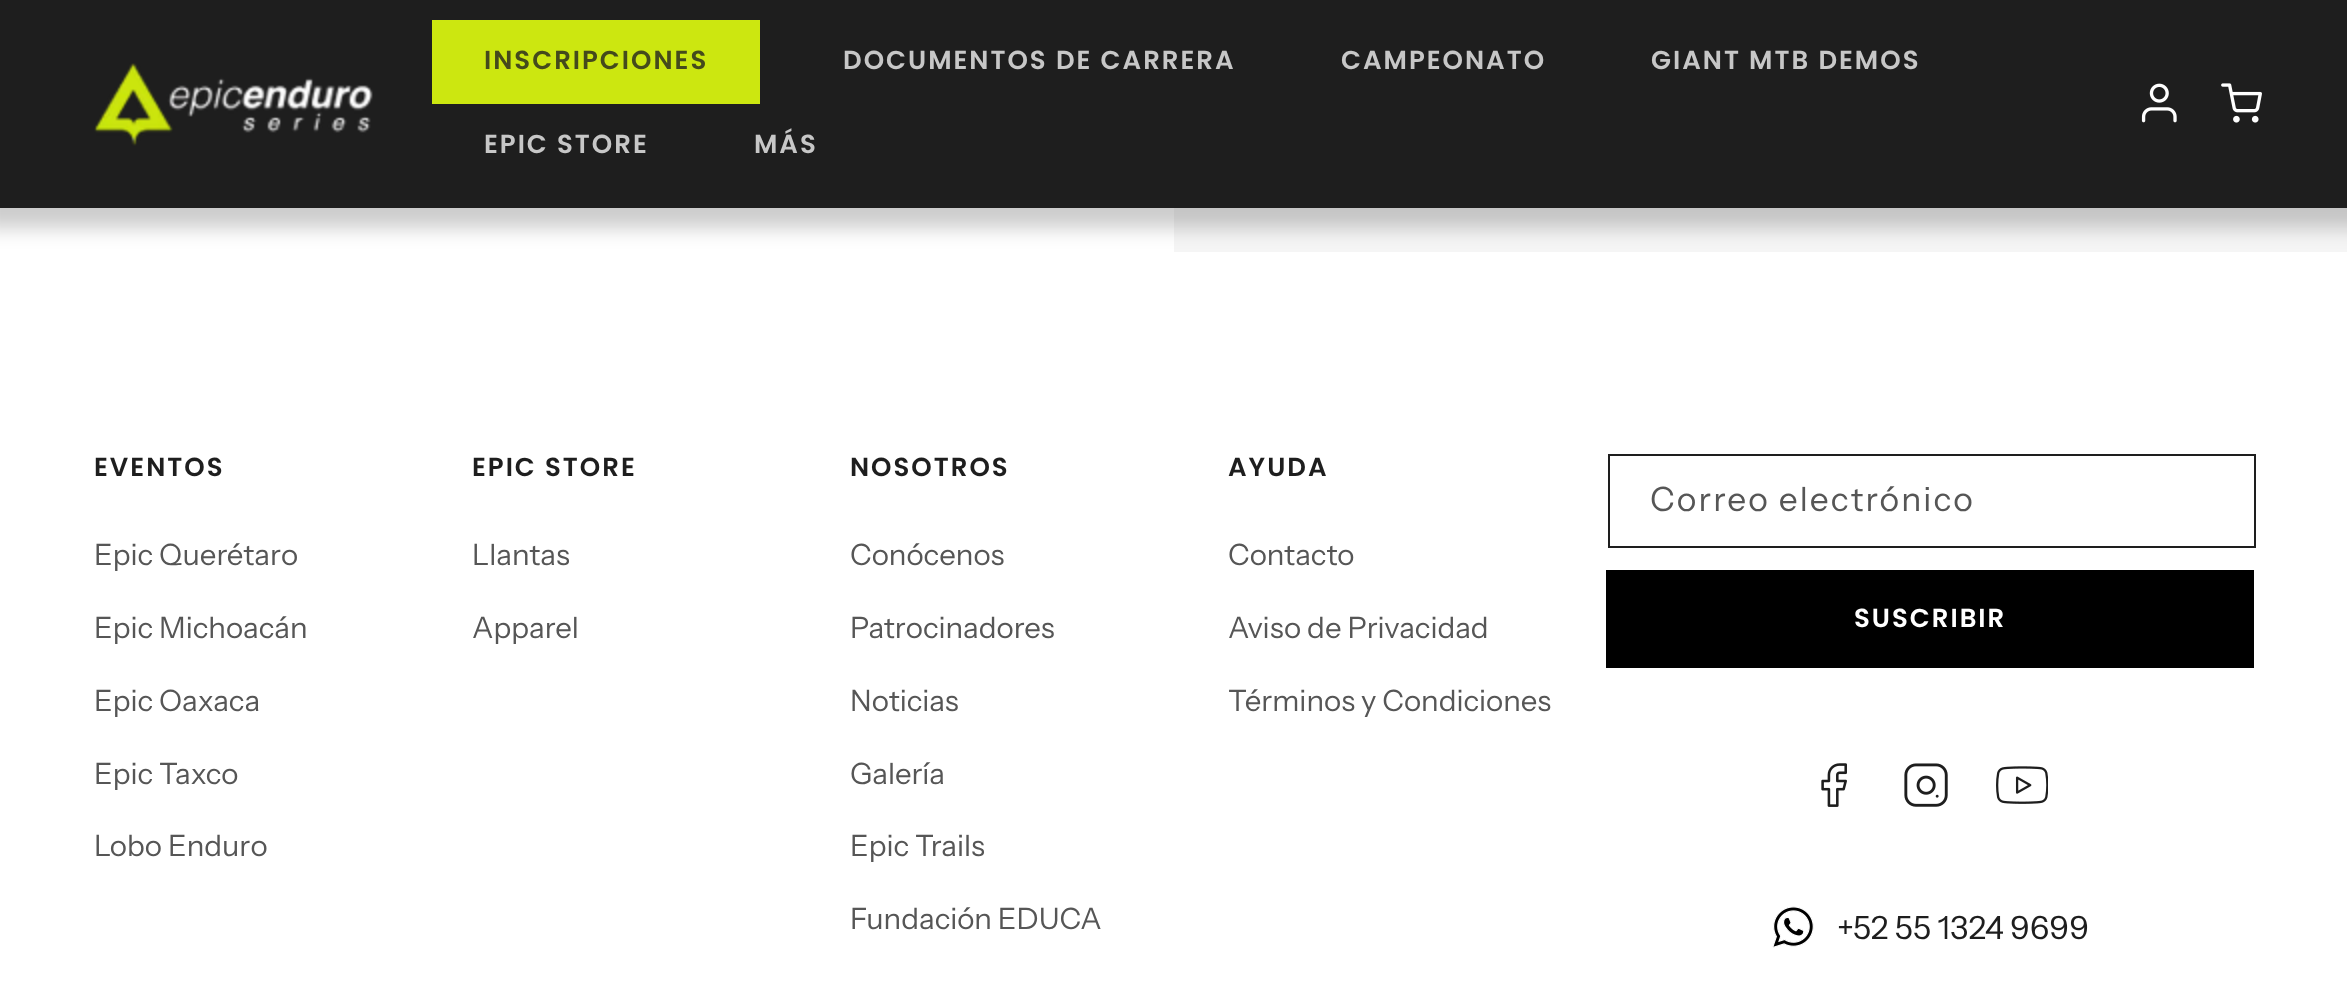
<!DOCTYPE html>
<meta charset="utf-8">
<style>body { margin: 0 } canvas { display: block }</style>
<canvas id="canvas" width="2347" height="981"></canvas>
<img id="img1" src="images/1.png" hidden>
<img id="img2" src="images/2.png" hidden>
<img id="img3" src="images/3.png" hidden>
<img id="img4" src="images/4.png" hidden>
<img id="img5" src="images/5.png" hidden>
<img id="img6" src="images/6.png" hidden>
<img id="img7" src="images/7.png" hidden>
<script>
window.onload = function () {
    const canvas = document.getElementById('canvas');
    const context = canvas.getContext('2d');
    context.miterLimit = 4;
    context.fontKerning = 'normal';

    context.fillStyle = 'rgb(255, 255, 255)';
    context.fillRect(0, 0, 2347, 981);
    context.fillStyle = 'rgb(245, 245, 245)';
    context.fillRect(1174, 208, 1173, 44);
    context.fillStyle = 'rgba(0, 0, 0, 0.2)';
    context.filter = 'blur(10px)';
    context.beginPath();
    context.rect(-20, -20, 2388, 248);
    context.fill();
    context.filter = 'none';
    context.fillStyle = 'rgb(30, 30, 30)';
    context.fillRect(0, 0, 2347, 208);
    context.drawImage(document.getElementById('img1'), 94, 63, 279, 83);
    context.fillStyle = 'rgb(204, 231, 16)';
    context.fillRect(432, 20, 328, 84);
    context.drawImage(document.getElementById('img2'), 2141, 83, 36, 40);
    context.drawImage(document.getElementById('img3'), 2221, 83, 41, 40);
    context.strokeStyle = 'rgb(30, 30, 30)';
    context.lineWidth = 2;
    context.strokeRect(1609, 455, 646, 92);
    context.fillStyle = 'rgb(0, 0, 0)';
    context.fillRect(1606, 570, 648, 98);
    context.drawImage(document.getElementById('img4'), 1821, 763, 26, 44);
    context.drawImage(document.getElementById('img5'), 1904, 763, 44, 44);
    context.drawImage(document.getElementById('img6'), 1996, 766, 52, 38);
    context.drawImage(document.getElementById('img7'), 1772, 906, 42, 42);
    context.letterSpacing = '2px';
    context.font = '600 26px Poppins';
    context.fillStyle = 'rgb(68, 74, 28)';
    context.fillText('INSCRIPCIONES', 484, 69);
    context.fillStyle = 'rgb(199, 199, 199)';
    context.fillText('DOCUMENTOS DE CARRERA', 843, 69);
    context.fillText('CAMPEONATO', 1341, 69);
    context.fillText('GIANT MTB DEMOS', 1651, 69);
    context.fillText('EPIC STORE', 484, 153);
    context.fillText('MÁS', 754, 153);
    context.fillStyle = 'rgb(30, 30, 30)';
    context.fillText('EVENTOS', 94, 476);
    context.letterSpacing = '0px';
    context.font = '29.4px Instrument Sans';
    context.fillStyle = 'rgb(86, 86, 86)';
    context.fillText('Epic Querétaro', 94, 565);
    context.fillText('Epic Michoacán', 94, 638);
    context.fillText('Epic Oaxaca', 94, 711);
    context.fillText('Epic Taxco', 94, 784);
    context.fillText('Lobo Enduro', 94, 856);
    context.letterSpacing = '2px';
    context.font = '600 26px Poppins';
    context.fillStyle = 'rgb(30, 30, 30)';
    context.fillText('EPIC STORE', 472, 476);
    context.letterSpacing = '0px';
    context.font = '29.4px Instrument Sans';
    context.fillStyle = 'rgb(86, 86, 86)';
    context.fillText('Llantas', 472, 565);
    context.fillText('Apparel', 472, 638);
    context.letterSpacing = '2px';
    context.font = '600 26px Poppins';
    context.fillStyle = 'rgb(30, 30, 30)';
    context.fillText('NOSOTROS', 850, 476);
    context.letterSpacing = '0px';
    context.font = '29.4px Instrument Sans';
    context.fillStyle = 'rgb(86, 86, 86)';
    context.fillText('Conócenos', 850, 565);
    context.fillText('Patrocinadores', 850, 638);
    context.fillText('Noticias', 850, 711);
    context.fillText('Galería', 850, 784);
    context.fillText('Epic Trails', 850, 856);
    context.fillText('Fundación EDUCA', 850, 929);
    context.letterSpacing = '2px';
    context.font = '600 26px Poppins';
    context.fillStyle = 'rgb(30, 30, 30)';
    context.fillText('AYUDA', 1228, 476);
    context.letterSpacing = '0px';
    context.font = '29.4px Instrument Sans';
    context.fillStyle = 'rgb(86, 86, 86)';
    context.fillText('Contacto', 1228, 565);
    context.fillText('Aviso de Privacidad', 1228, 638);
    context.fillText('Términos y Condiciones', 1228, 711);
    context.letterSpacing = '2.1px';
    context.font = '33.5px Instrument Sans';
    context.fillText('Correo electrónico', 1650, 511);
    context.letterSpacing = '2px';
    context.font = '600 26px Poppins';
    context.fillStyle = 'rgb(255, 255, 255)';
    context.fillText('SUSCRIBIR', 1854, 627);
    context.letterSpacing = '0px';
    context.font = '32px Instrument Sans';
    context.fillStyle = 'rgb(30, 30, 30)';
    context.fillText('+52 55 1324 9699', 1837, 939);
};
</script>
